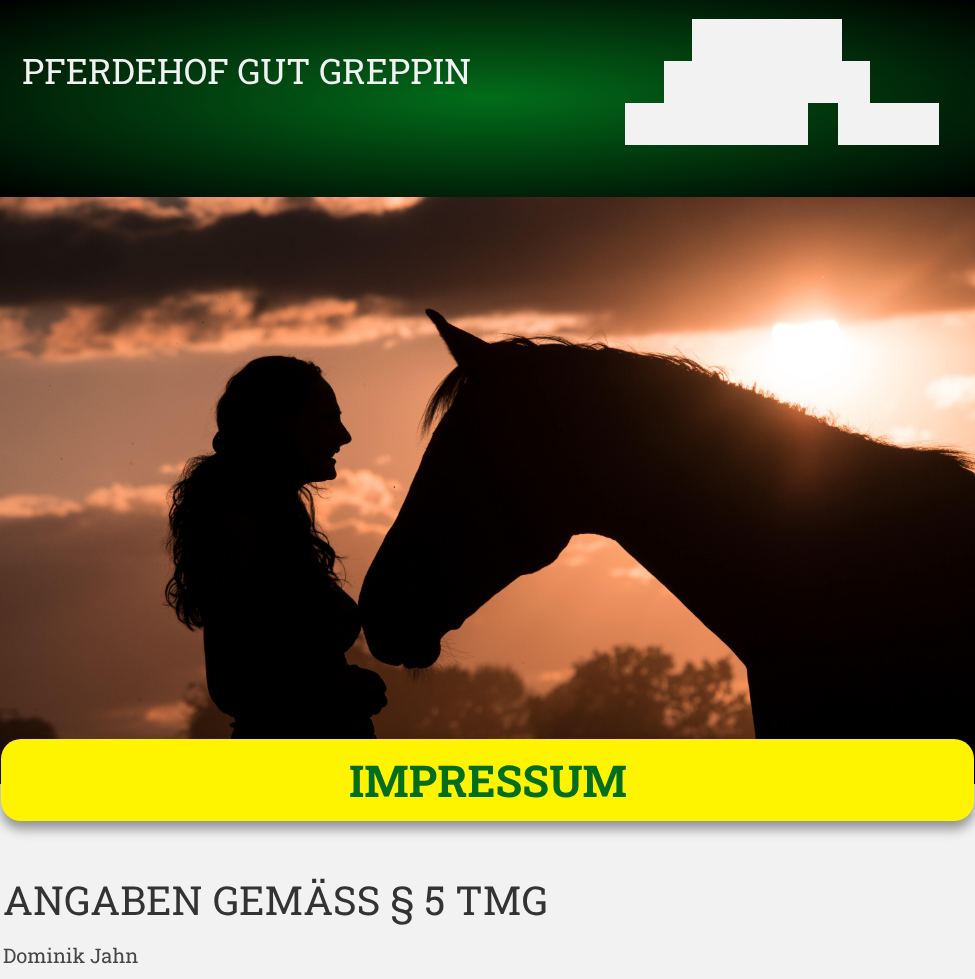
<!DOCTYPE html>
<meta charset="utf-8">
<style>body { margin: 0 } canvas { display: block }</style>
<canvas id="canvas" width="975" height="979"></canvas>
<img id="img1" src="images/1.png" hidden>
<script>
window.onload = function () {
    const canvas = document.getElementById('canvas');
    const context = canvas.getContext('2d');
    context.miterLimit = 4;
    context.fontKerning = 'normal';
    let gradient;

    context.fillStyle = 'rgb(255, 255, 255)';
    context.fillRect(0, 0, 975, 979);
    gradient = context.createRadialGradient(488, 482.3, 0, 488, 482.3, 689);
    gradient.addColorStop(0, 'rgb(2, 109, 26)');
    gradient.addColorStop(1, 'rgb(0, 0, 0)');
    context.fillStyle = gradient;
    context.beginPath();
    context.rect(0, 0, 975, 197);
    context.save();
    context.clip();
    context.scale(1, 140 / 689);
    context.fillRect(0, 0, 975, 4819);
    context.restore();
    context.fillStyle = 'rgb(242, 242, 242)';
    context.fillRect(692, 19, 150, 42);
    context.fillRect(664, 61, 206, 42);
    context.fillRect(625, 103, 183, 42);
    context.fillRect(838, 103, 101, 42);
    context.drawImage(document.getElementById('img1'), 0, 197, 975, 587);
    context.fillRect(0, 784, 975, 195);
    context.fillStyle = 'rgba(0, 0, 0, 0.4)';
    context.filter = 'blur(6px)';
    context.beginPath();
    context.roundRect(1, 747, 973, 82, 20);
    context.fill();
    context.filter = 'none';
    context.fillStyle = 'rgb(255, 244, 0)';
    context.beginPath();
    context.roundRect(1, 739, 973, 82, 20);
    context.fill();
    context.font = '35px Roboto Slab';
    context.fillStyle = 'rgb(242, 242, 242)';
    context.fillText('PFERDEHOF GUT GREPPIN', 22, 84);
    context.font = 'bold 44px Roboto Slab';
    context.fillStyle = 'rgb(2, 109, 26)';
    context.fillText('IMPRESSUM', 349, 797);
    context.font = '40px Roboto Slab';
    context.fillStyle = 'rgb(51, 51, 51)';
    context.fillText('ANGABEN GEMÄSS § 5 TMG', 3, 915);
    context.font = '20px Roboto Slab';
    context.fillStyle = 'rgb(70, 70, 70)';
    context.fillText('Dominik Jahn', 3, 963);
};
</script>
